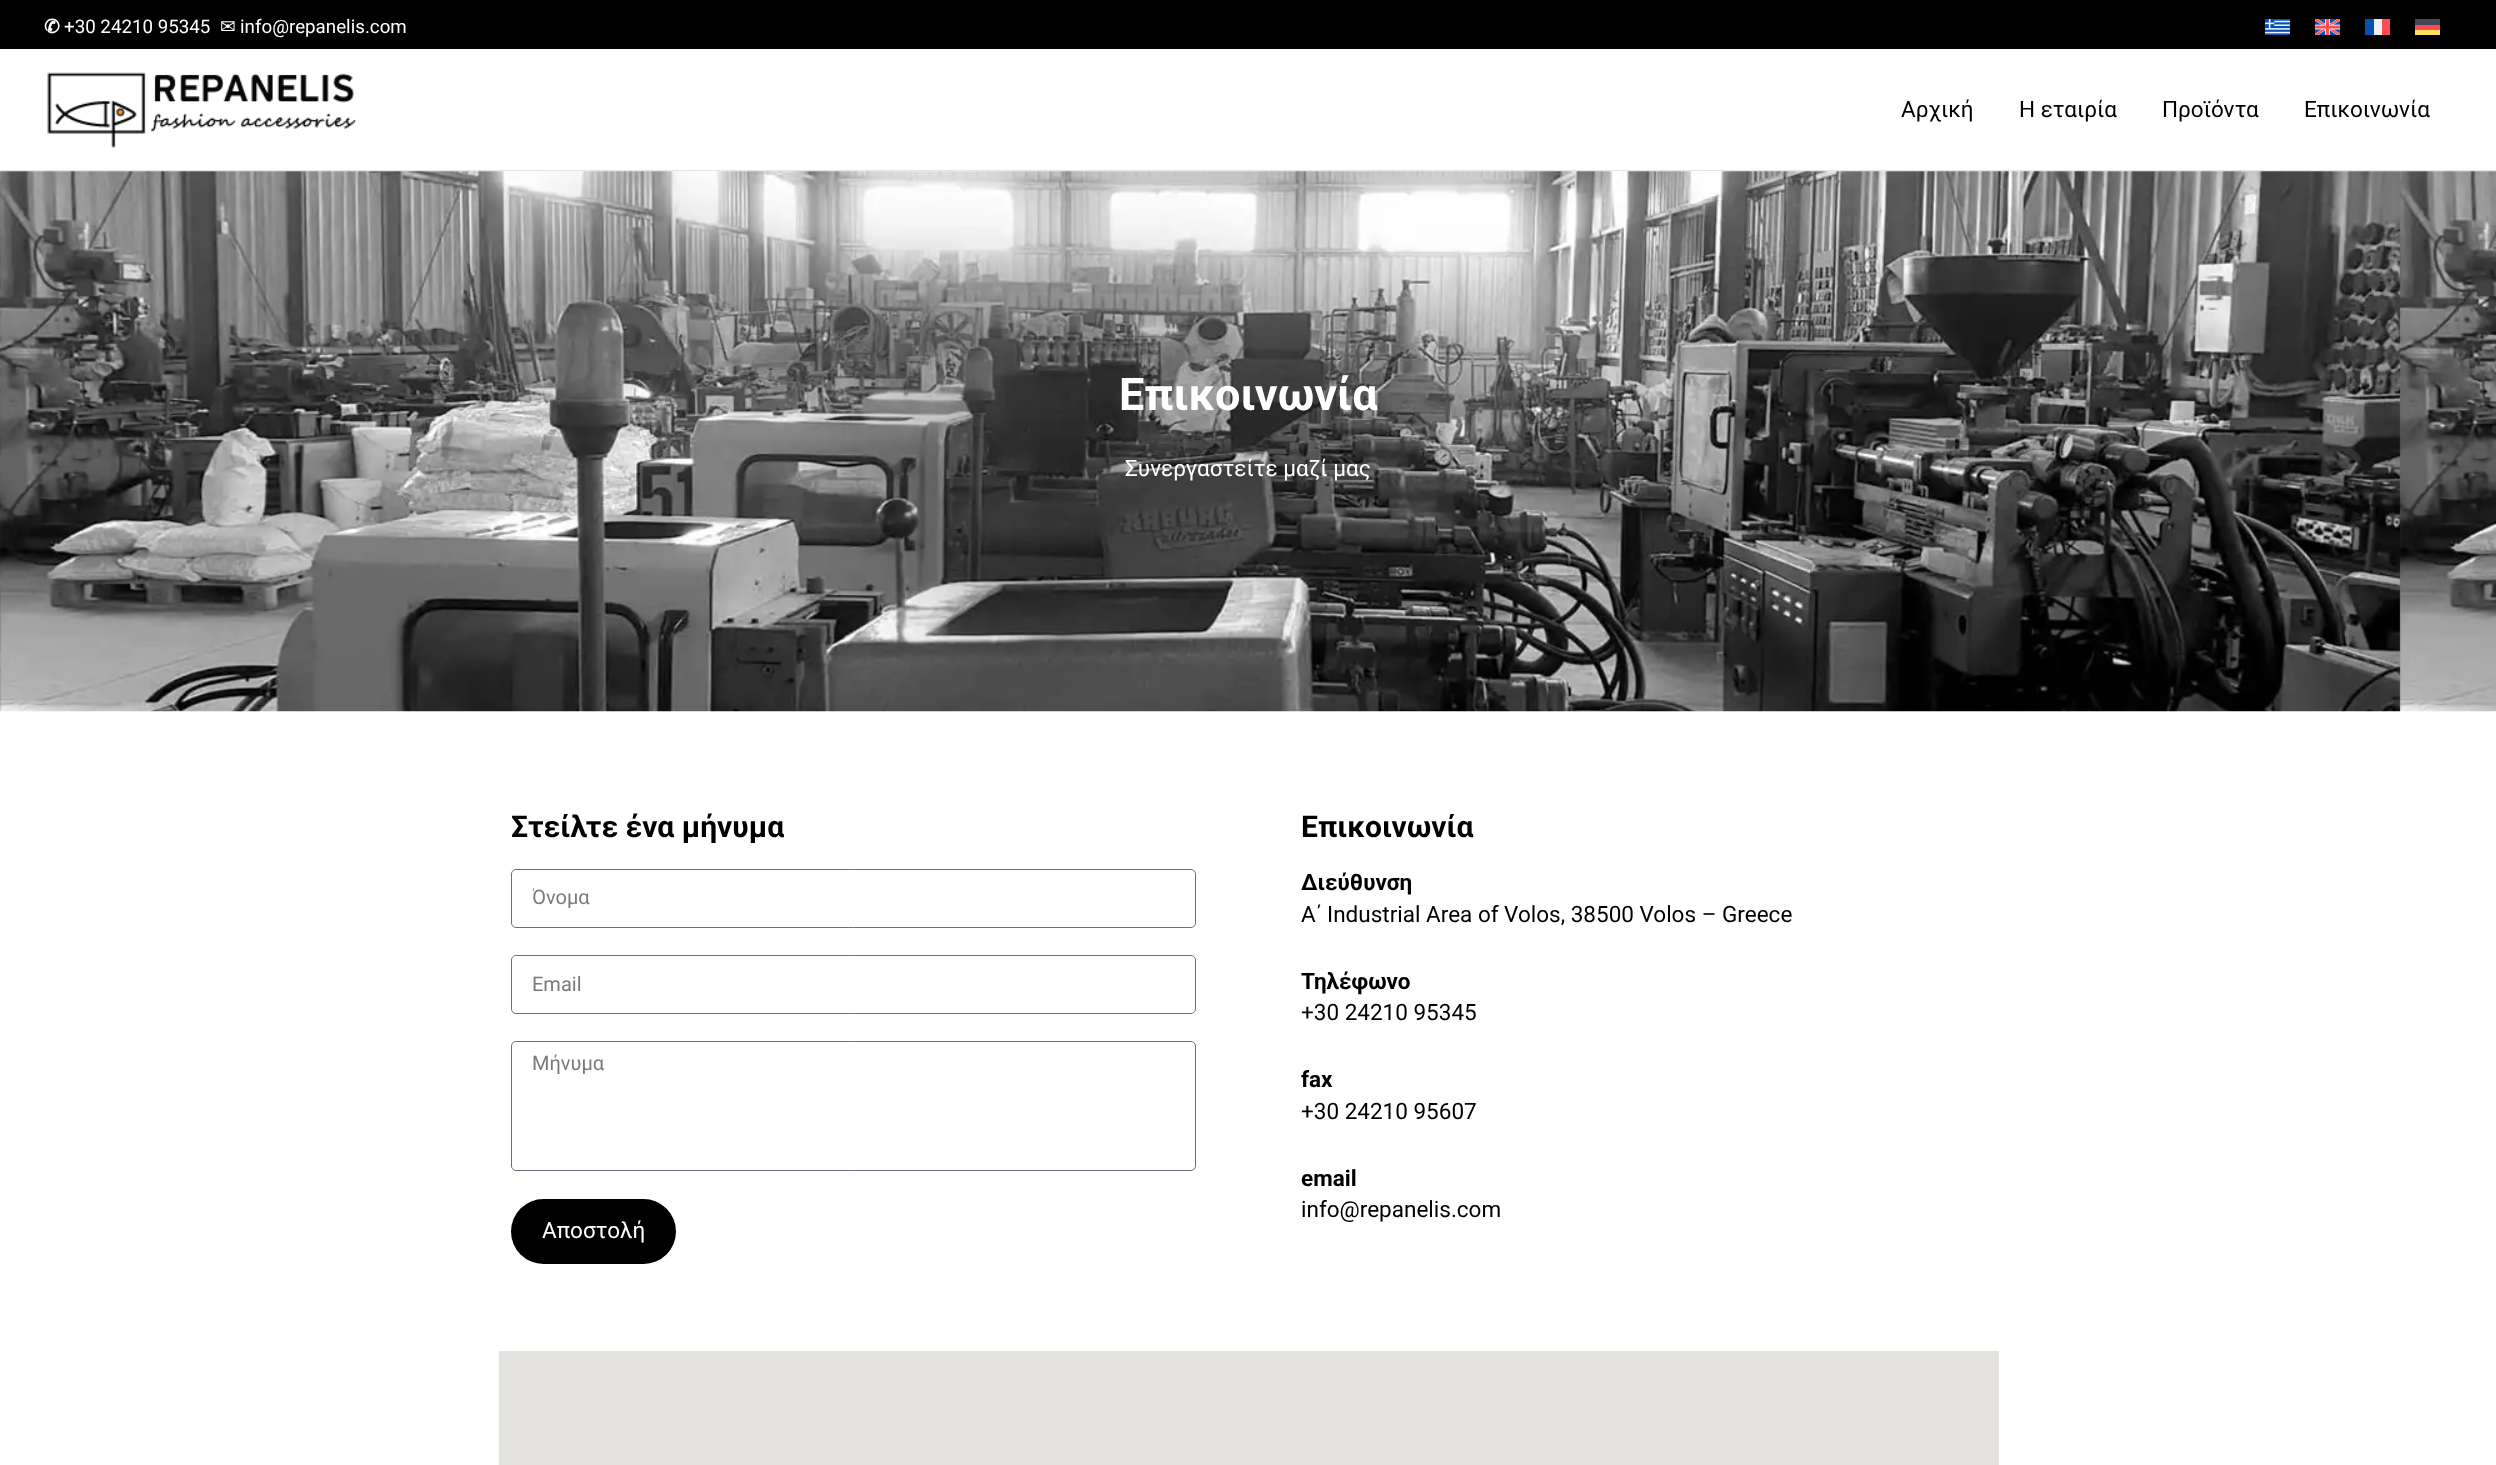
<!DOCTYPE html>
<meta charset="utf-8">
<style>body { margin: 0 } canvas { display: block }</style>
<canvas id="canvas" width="2496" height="1465"></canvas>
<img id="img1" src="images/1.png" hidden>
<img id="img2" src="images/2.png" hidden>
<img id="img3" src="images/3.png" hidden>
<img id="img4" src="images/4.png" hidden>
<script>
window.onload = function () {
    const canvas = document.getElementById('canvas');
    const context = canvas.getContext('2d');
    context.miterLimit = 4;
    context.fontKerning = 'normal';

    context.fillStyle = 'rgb(255, 255, 255)';
    context.fillRect(0, 0, 2496, 1465);
    context.fillStyle = 'rgb(0, 0, 0)';
    context.fillRect(0, 0, 2496, 49);
    context.drawImage(document.getElementById('img1'), 2265, 19, 25, 16);
    context.drawImage(document.getElementById('img2'), 2315, 19, 25, 16);
    context.fillStyle = 'rgb(240, 240, 240)';
    context.fillRect(2374, 19, 8, 16);
    context.fillStyle = 'rgb(255, 75, 85)';
    context.fillRect(2382, 19, 8, 16);
    context.fillStyle = 'rgb(0, 82, 180)';
    context.fillRect(2365, 19, 9, 16);
    context.fillStyle = 'rgb(255, 75, 85)';
    context.fillRect(2415, 25, 25, 5);
    context.fillStyle = 'rgb(255, 225, 90)';
    context.fillRect(2415, 30, 25, 5);
    context.fillStyle = 'rgb(70, 70, 85)';
    context.fillRect(2415, 19, 25, 6);
    context.fillStyle = 'rgb(229, 229, 229)';
    context.fillRect(0, 170, 2496, 1);
    context.drawImage(document.getElementById('img3'), 47, 72, 310, 76);
    context.drawImage(document.getElementById('img4'), 0, 171, 2496, 541);
    context.beginPath();
    context.roundRect(511.5, 869.5, 684, 58, 4.5);
    context.strokeStyle = 'rgb(105, 114, 125)';
    context.stroke();
    context.beginPath();
    context.roundRect(511.5, 955.5, 684, 58, 4.5);
    context.stroke();
    context.beginPath();
    context.roundRect(511.5, 1041.5, 684, 129, 4.5);
    context.stroke();
    context.fillStyle = 'rgb(0, 0, 0)';
    context.beginPath();
    context.roundRect(511, 1199, 165, 65, 32.5);
    context.fill();
    context.fillStyle = 'rgb(229, 227, 223)';
    context.fillRect(499, 1351, 1500, 114);
    context.font = 'bold 18.75px DejaVu Sans';
    context.fillStyle = 'rgb(255, 255, 255)';
    context.fillText('✆', 44, 33);
    context.font = '18.75px Roboto';
    context.fillText('+30 24210 95345', 64, 33);
    context.font = '18.75px DejaVu Sans';
    context.fillText('✉', 220, 33);
    context.font = '18.75px Roboto';
    context.fillText('info@repanelis.com', 240, 33);
    context.font = '22.5px Roboto';
    context.fillStyle = 'rgb(0, 0, 0)';
    context.fillText('Αρχική', 1901, 117);
    context.fillText('Η εταιρία', 2019, 117);
    context.fillText('Προϊόντα', 2162, 117);
    context.fillText('Επικοινωνία', 2304, 117);
    context.font = 'bold 45px Roboto';
    context.fillStyle = 'rgb(255, 255, 255)';
    context.fillText('Επικοινωνία', 1119, 410);
    context.font = '22.5px Roboto';
    context.fillText('Συνεργαστείτε μαζί μας', 1125, 476);
    context.font = 'bold 30px Roboto';
    context.fillStyle = 'rgb(0, 0, 0)';
    context.fillText('Στείλτε ένα μήνυμα', 511, 837);
    context.save();
    context.beginPath();
    context.rect(533, 886, 642, 24);
    context.clip();
    context.font = '20px Roboto';
    context.fillStyle = 'rgb(121, 122, 124)';
    context.fillText('Όνομα', 532, 904);
    context.restore();
    context.font = '20px Roboto';
    context.fillStyle = 'rgb(121, 122, 124)';
    context.fillText('Email', 532, 991);
    context.fillText('Μήνυμα', 532, 1070);
    context.font = '22.5px Roboto';
    context.fillStyle = 'rgb(255, 255, 255)';
    context.fillText('Αποστολή', 542, 1238);
    context.font = 'bold 30px Roboto';
    context.fillStyle = 'rgb(0, 0, 0)';
    context.fillText('Επικοινωνία', 1301, 837);
    context.font = 'bold 22.5px Roboto';
    context.fillText('Διεύθυνση', 1301, 890);
    context.font = '22.5px Roboto';
    context.fillText('Α΄ Industrial Area of Volos, 38500 Volos – Greece', 1301, 922);
    context.font = 'bold 22.5px Roboto';
    context.fillText('Τηλέφωνο', 1301, 989);
    context.font = '22.5px Roboto';
    context.fillText('+30 24210 95345', 1301, 1020);
    context.font = 'bold 22.5px Roboto';
    context.fillText('fax', 1301, 1087);
    context.font = '22.5px Roboto';
    context.fillText('+30 24210 95607', 1301, 1119);
    context.font = 'bold 22.5px Roboto';
    context.fillText('email', 1301, 1186);
    context.font = '22.5px Roboto';
    context.fillText('info@repanelis.com', 1301, 1217);
};
</script>
